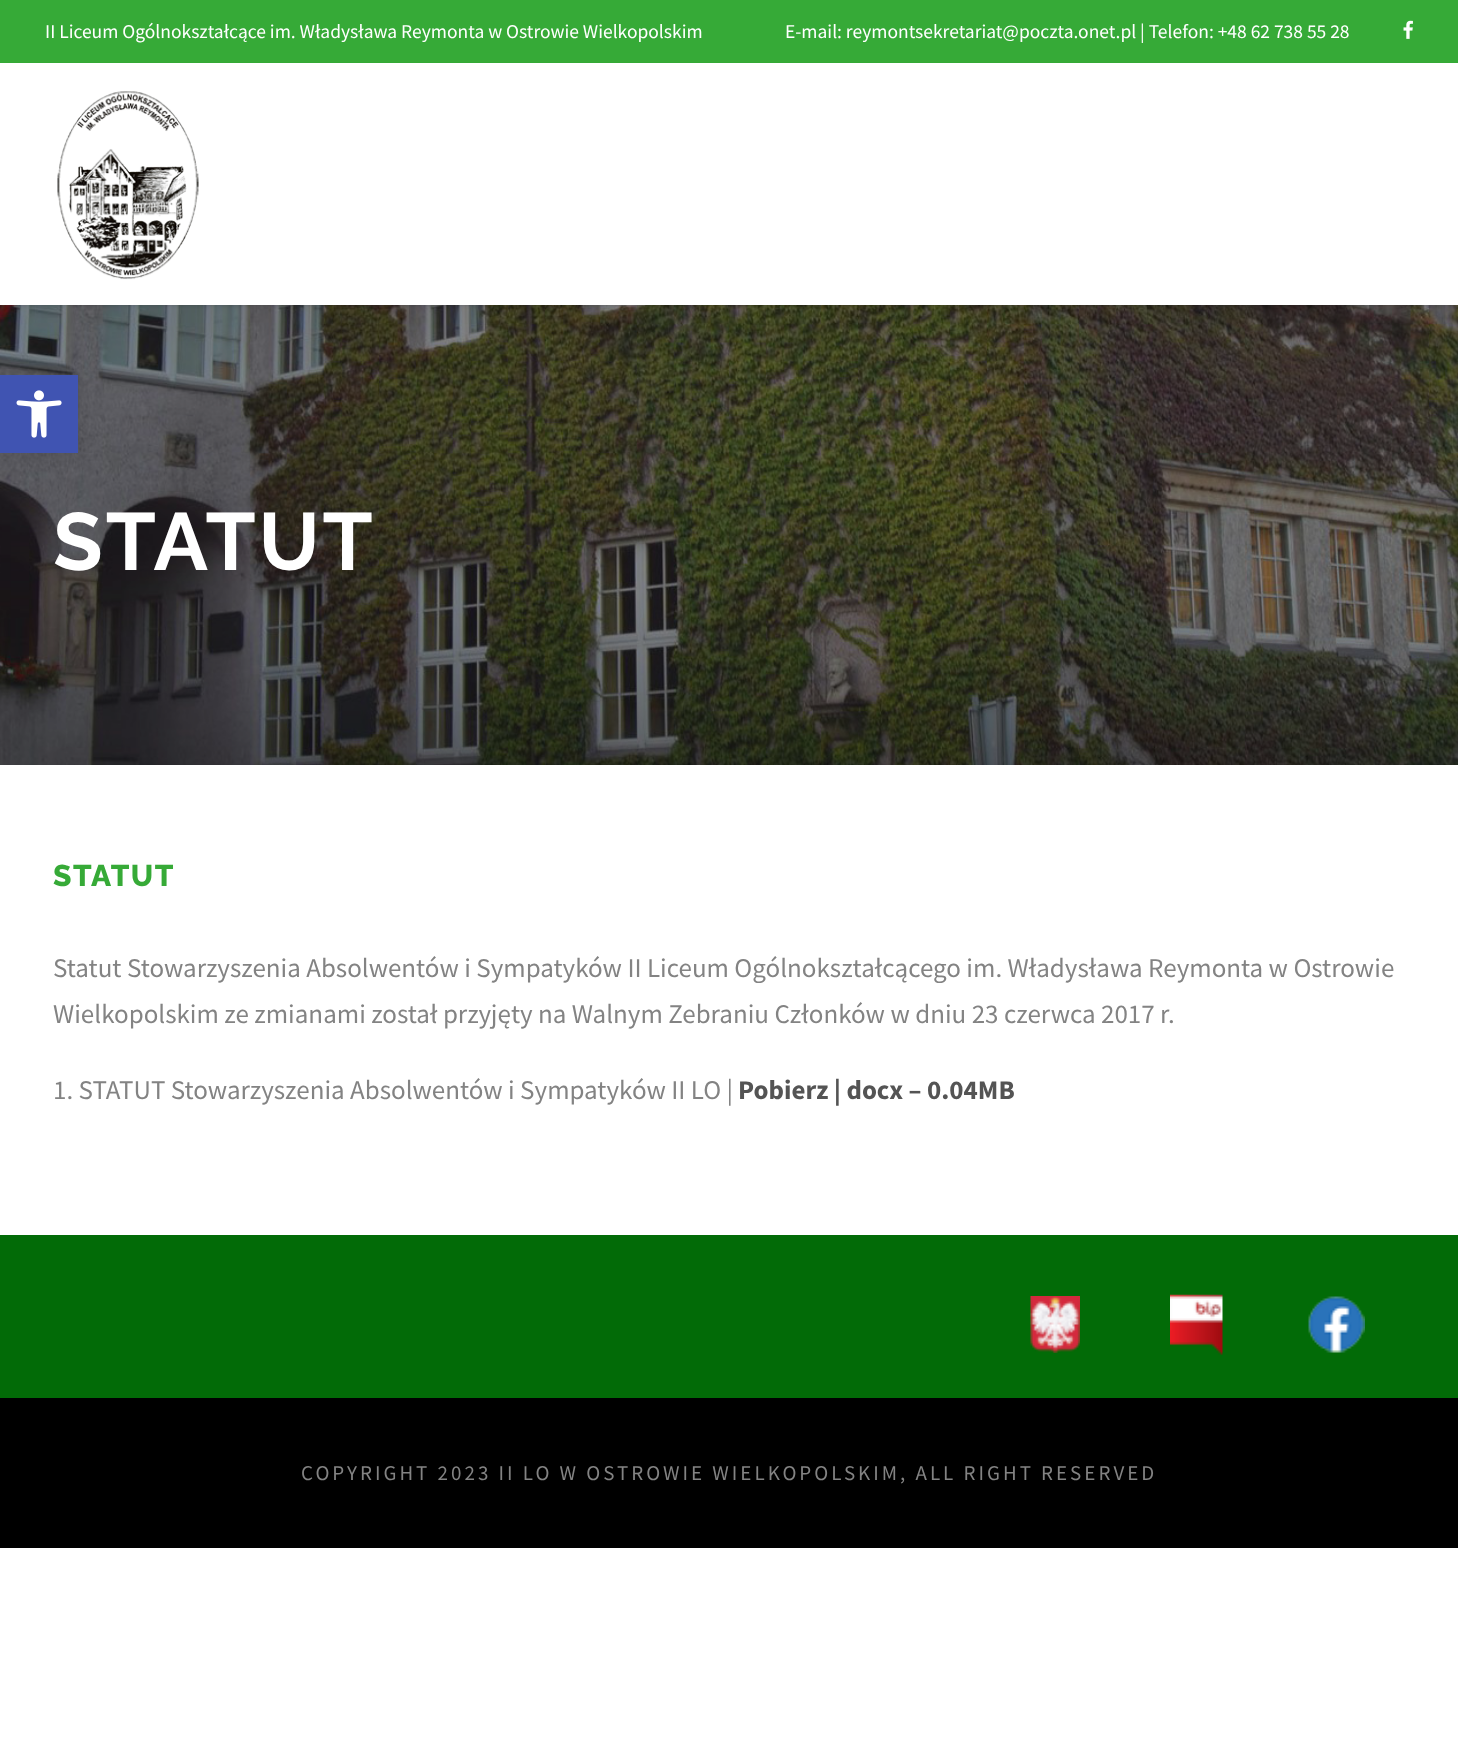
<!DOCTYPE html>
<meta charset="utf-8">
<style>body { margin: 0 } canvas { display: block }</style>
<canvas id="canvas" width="1458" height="1759"></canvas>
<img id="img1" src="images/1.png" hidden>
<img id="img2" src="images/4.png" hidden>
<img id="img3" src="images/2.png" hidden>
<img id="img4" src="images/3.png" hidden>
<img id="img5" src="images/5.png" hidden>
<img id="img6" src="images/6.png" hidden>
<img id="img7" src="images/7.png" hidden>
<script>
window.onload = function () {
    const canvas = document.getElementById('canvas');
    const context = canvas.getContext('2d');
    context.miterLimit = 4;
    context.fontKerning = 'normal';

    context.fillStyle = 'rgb(255, 255, 255)';
    context.fillRect(0, 0, 1458, 1759);
    context.fillStyle = 'rgb(54, 170, 55)';
    context.fillRect(0, 0, 1458, 63);
    context.drawImage(document.getElementById('img1'), 1403, 20, 10, 19);
    context.drawImage(document.getElementById('img2'), 0, 305, 1458, 460);
    context.fillStyle = 'rgba(0, 0, 0, 0.1)';
    context.filter = 'blur(1.5px)';
    context.beginPath();
    context.rect(0, 65, 1458, 241);
    context.fill();
    context.filter = 'none';
    context.fillStyle = 'rgb(255, 255, 255)';
    context.fillRect(0, 63, 1458, 242);
    context.drawImage(document.getElementById('img3'), 57, 91, 142, 189);
    context.fillStyle = 'rgba(0, 0, 0, 0.1)';
    context.filter = 'blur(7.5px)';
    context.beginPath();
    context.rect(0, 375, 78, 78);
    context.fill();
    context.filter = 'none';
    context.fillStyle = 'rgb(64, 84, 178)';
    context.fillRect(0, 375, 78, 78);
    context.drawImage(document.getElementById('img4'), 16, 390, 46, 48);
    context.fillStyle = 'rgb(2, 107, 7)';
    context.fillRect(0, 1235, 1458, 163);
    context.drawImage(document.getElementById('img5'), 1030, 1296, 50, 57);
    context.drawImage(document.getElementById('img6'), 1170, 1294, 53, 61);
    context.drawImage(document.getElementById('img7'), 1308, 1296, 57, 57);
    context.fillStyle = 'rgb(0, 0, 0)';
    context.fillRect(0, 1398, 1458, 150);
    context.font = '19.5px Source Sans Pro';
    context.fillStyle = 'rgb(255, 255, 255)';
    context.fillText('II Liceum Ogólnokształcące im. Władysława Reymonta w Ostrowie Wielkopolskim', 45, 38);
    context.fillText('E-mail: reymontsekretariat@poczta.onet.pl | Telefon: +48 62 738 55 28', 785, 38);
    context.letterSpacing = '3px';
    context.font = 'bold 81px Raleway';
    context.fillText('STATUT', 53, 570);
    context.letterSpacing = '1.5px';
    context.font = '800 30px Raleway';
    context.fillStyle = 'rgb(54, 170, 55)';
    context.fillText('STATUT', 53, 886);
    context.letterSpacing = '0px';
    context.font = '27px Source Sans Pro';
    context.fillStyle = 'rgb(131, 131, 131)';
    context.fillText('Statut Stowarzyszenia Absolwentów i Sympatyków II Liceum Ogólnokształcącego im. Władysława Reymonta w Ostrowie', 53, 977);
    context.fillText('Wielkopolskim ze zmianami został przyjęty na Walnym Zebraniu Członków w dniu 23 czerwca 2017 r.', 53, 1023);
    context.fillText('1. STATUT Stowarzyszenia Absolwentów i Sympatyków II LO |', 53, 1099);
    context.font = 'bold 27px Source Sans Pro';
    context.fillStyle = 'rgb(84, 84, 84)';
    context.fillText('Pobierz | docx – 0.04MB', 738, 1099);
    context.letterSpacing = '3px';
    context.font = '21px Source Sans Pro';
    context.fillStyle = 'rgb(131, 131, 131)';
    context.fillText('COPYRIGHT 2023 II LO W OSTROWIE WIELKOPOLSKIM, ALL RIGHT RESERVED', 301, 1480);
};
</script>
